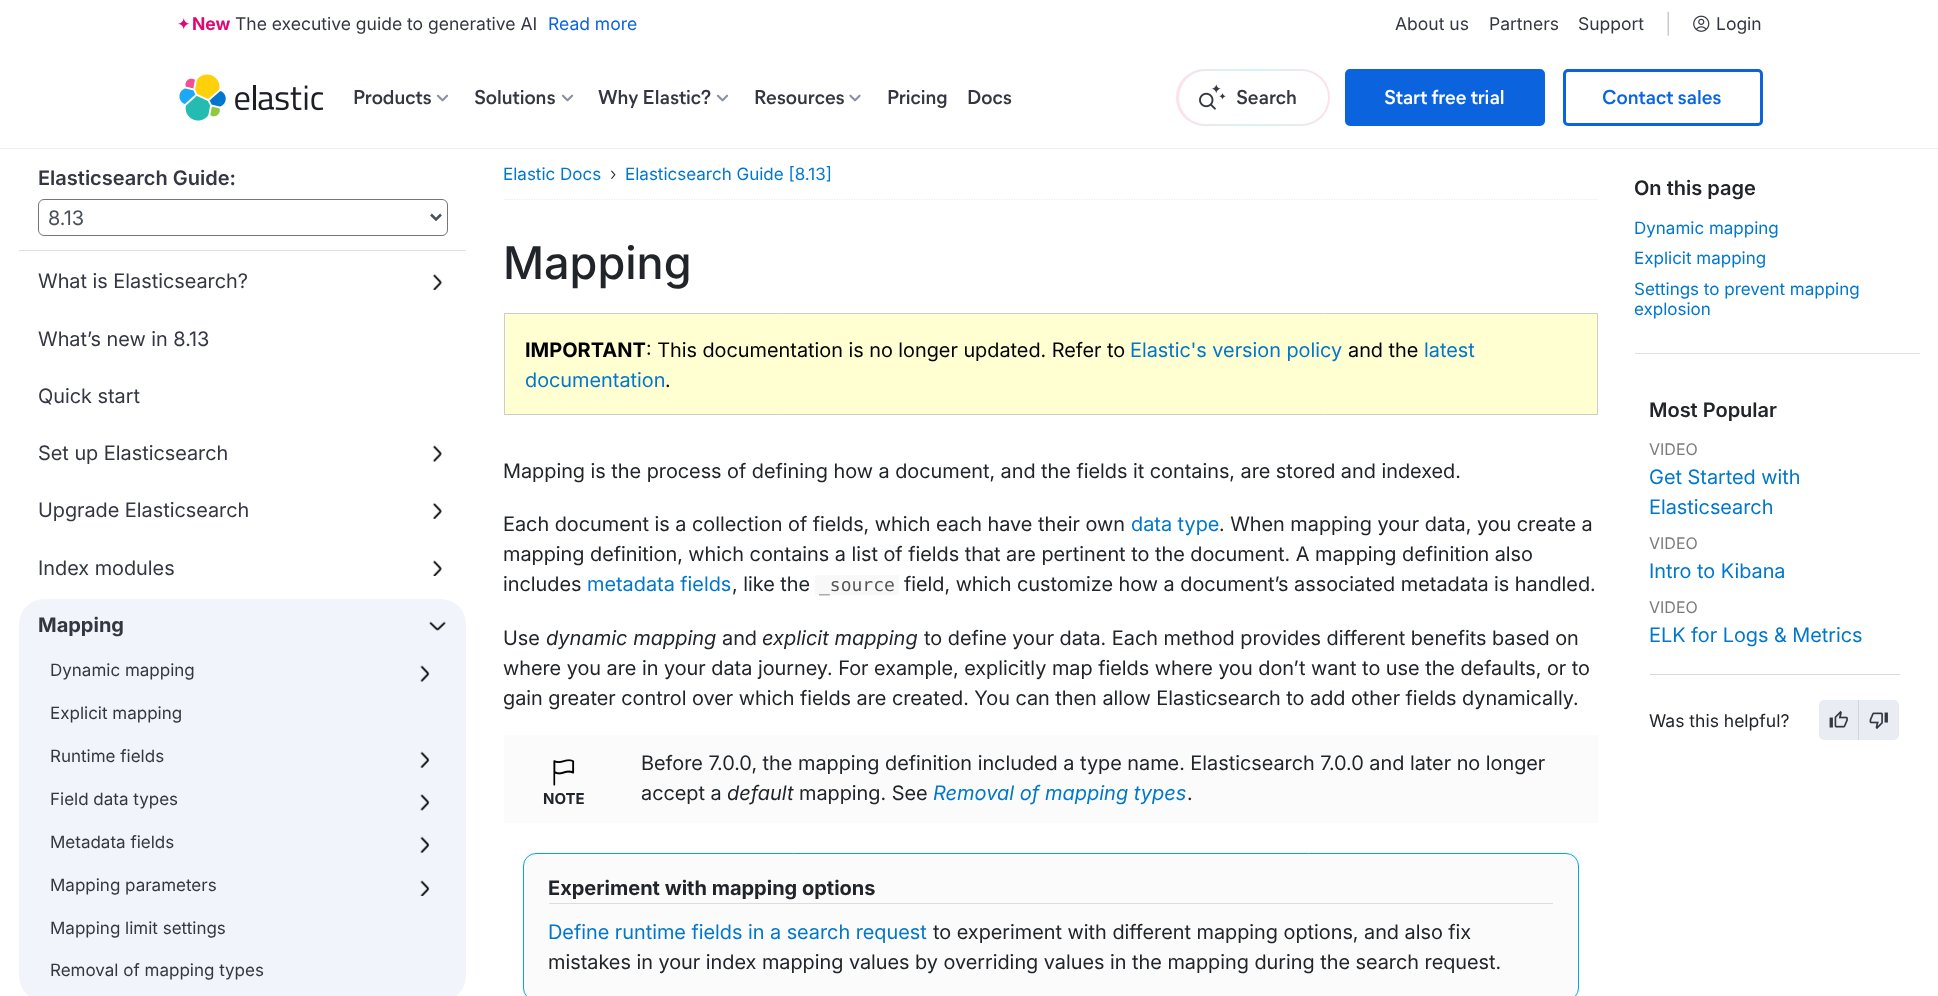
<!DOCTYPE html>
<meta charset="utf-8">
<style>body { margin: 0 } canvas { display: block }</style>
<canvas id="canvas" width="1938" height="996"></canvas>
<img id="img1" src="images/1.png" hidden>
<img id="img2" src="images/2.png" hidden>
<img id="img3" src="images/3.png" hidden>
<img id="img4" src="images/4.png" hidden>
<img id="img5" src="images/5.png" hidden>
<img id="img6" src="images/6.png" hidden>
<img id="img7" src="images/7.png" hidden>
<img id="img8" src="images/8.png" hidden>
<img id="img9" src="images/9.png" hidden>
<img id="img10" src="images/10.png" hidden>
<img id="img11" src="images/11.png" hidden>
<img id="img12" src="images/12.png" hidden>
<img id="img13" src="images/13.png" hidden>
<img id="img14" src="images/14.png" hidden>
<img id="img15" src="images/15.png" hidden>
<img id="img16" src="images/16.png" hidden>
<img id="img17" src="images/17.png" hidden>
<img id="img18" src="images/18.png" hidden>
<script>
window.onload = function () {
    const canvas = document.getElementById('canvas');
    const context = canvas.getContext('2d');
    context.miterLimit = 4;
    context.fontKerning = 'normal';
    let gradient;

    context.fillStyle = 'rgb(255, 255, 255)';
    context.fillRect(0, 0, 1938, 996);
    context.fillStyle = 'rgb(238, 239, 241)';
    context.fillRect(0, 148, 1938, 1);
    context.drawImage(document.getElementById('img1'), 178, 18, 12, 12);
    context.drawImage(document.getElementById('img2'), 1693, 15, 17, 17);
    context.drawImage(document.getElementById('img3'), 179, 74, 144, 47);
    context.drawImage(document.getElementById('img4'), 436, 94, 13, 8);
    context.drawImage(document.getElementById('img4'), 561, 94, 13, 8);
    context.drawImage(document.getElementById('img4'), 716, 94, 13, 8);
    context.drawImage(document.getElementById('img5'), 849, 94, 12, 8);
    gradient = context.createLinearGradient(1176, 98, 1484, 97);
    gradient.addColorStop(0, 'rgb(252, 225, 237)');
    gradient.addColorStop(0.25, 'rgb(212, 244, 243)');
    gradient.addColorStop(0.5, 'rgb(252, 225, 237)');
    gradient.addColorStop(0.75, 'rgb(212, 244, 243)');
    gradient.addColorStop(1, 'rgb(252, 225, 237)');
    context.fillStyle = gradient;
    context.beginPath();
    context.roundRect(1176, 69, 154, 57, 28.5);
    context.fill();
    context.fillStyle = 'rgb(255, 255, 255)';
    context.beginPath();
    context.roundRect(1179, 71, 149, 53, 26.5);
    context.fill();
    context.drawImage(document.getElementById('img6'), 1199, 84, 27, 26);
    context.fillStyle = 'rgb(11, 100, 221)';
    context.beginPath();
    context.roundRect(1346.5, 70.5, 197, 54, 3.5);
    context.fill();
    context.strokeStyle = 'rgb(11, 100, 221)';
    context.lineWidth = 3;
    context.stroke();
    context.beginPath();
    context.roundRect(1564.5, 70.5, 197, 54, 3.5);
    context.stroke();
    context.fillStyle = 'rgb(222, 226, 230)';
    context.fillRect(19, 250, 447, 1);
    context.beginPath();
    context.roundRect(38.5, 199.5, 409, 36, 5.5);
    context.strokeStyle = 'rgb(118, 118, 118)';
    context.lineWidth = 1;
    context.stroke();
    context.beginPath();
    context.moveTo(431, 214.5);
    context.lineTo(436, 219.5);
    context.lineTo(441, 214.5);
    context.strokeStyle = 'rgb(73, 80, 87)';
    context.lineWidth = 2.5;
    context.stroke();
    context.drawImage(document.getElementById('img7'), 432, 274, 10, 16);
    context.drawImage(document.getElementById('img8'), 432, 445, 10, 17);
    context.drawImage(document.getElementById('img9'), 432, 502, 10, 17);
    context.drawImage(document.getElementById('img10'), 432, 560, 10, 16);
    context.fillStyle = 'rgb(241, 244, 250)';
    context.beginPath();
    context.roundRect(19, 599, 447, 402, 25);
    context.fill();
    context.drawImage(document.getElementById('img11'), 429, 621, 17, 10);
    context.drawImage(document.getElementById('img12'), 420, 665, 10, 17);
    context.drawImage(document.getElementById('img13'), 420, 751, 10, 17);
    context.drawImage(document.getElementById('img14'), 420, 794, 10, 17);
    context.drawImage(document.getElementById('img13'), 420, 836, 10, 17);
    context.drawImage(document.getElementById('img15'), 420, 880, 10, 16);
    context.beginPath();
    context.moveTo(504, 199.5);
    context.lineTo(1597.5, 199.5);
    context.strokeStyle = 'rgb(236, 236, 236)';
    context.lineWidth = 1.2;
    context.setLineDash([1.25, 1.25]);
    context.stroke();
    context.fillStyle = 'rgb(255, 255, 210)';
    context.beginPath();
    context.rect(504.5, 313.5, 1093, 101);
    context.fill();
    context.strokeStyle = 'rgb(204, 204, 204)';
    context.lineWidth = 1;
    context.setLineDash([]);
    context.stroke();
    context.fillStyle = 'rgb(248, 248, 248)';
    context.fillRect(815, 575, 84, 20);
    context.fillStyle = 'rgb(251, 251, 251)';
    context.fillRect(504, 735, 1094, 88);
    context.drawImage(document.getElementById('img16'), 553, 759, 22, 27);
    context.beginPath();
    context.roundRect(523.5, 853.5, 1055, 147, 12.5);
    context.fill();
    context.strokeStyle = 'rgb(0, 169, 229)';
    context.stroke();
    context.fillStyle = 'rgb(221, 221, 221)';
    context.fillRect(549, 903, 1004, 1);
    context.fillStyle = 'rgb(222, 226, 230)';
    context.fillRect(1635, 353, 285, 1);
    context.fillStyle = 'rgb(211, 218, 230)';
    context.fillRect(1650, 674, 250, 1);
    context.fillStyle = 'rgb(233, 237, 243)';
    context.beginPath();
    context.roundRect(1819, 700, 40, 40, [5, 0, 0, 5]);
    context.fill();
    context.drawImage(document.getElementById('img17'), 1829, 710, 19, 18);
    context.fillStyle = 'rgb(210, 213, 219)';
    context.fillRect(1858, 700, 1, 40);
    context.fillStyle = 'rgb(233, 237, 243)';
    context.beginPath();
    context.roundRect(1859, 700, 40, 40, [0, 5, 5, 0]);
    context.fill();
    context.drawImage(document.getElementById('img18'), 1869, 712, 19, 18);
    context.font = 'bold 17.5px Inter';
    context.fillStyle = 'rgb(221, 10, 115)';
    context.fillText('New', 192, 30);
    context.font = '17.5px "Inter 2"';
    context.fillStyle = 'rgb(52, 55, 65)';
    context.fillText('The executive guide to generative AI', 235, 30);
    context.fillStyle = 'rgb(11, 100, 221)';
    context.fillText('Read more', 548, 30);
    context.fillStyle = 'rgb(52, 55, 65)';
    context.fillText('About us', 1395, 30);
    context.fillText('Partners', 1489, 30);
    context.fillText('Support', 1578, 30);
    context.font = '20px Inter';
    context.fillStyle = 'rgb(204, 204, 204)';
    context.fillText('|', 1665, 31);
    context.font = '17.5px "Inter 2"';
    context.fillStyle = 'rgb(52, 55, 65)';
    context.fillText('Login', 1716, 30);
    context.font = '600 20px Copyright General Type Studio';
    context.fillText('Products', 353, 104);
    context.fillText('Solutions', 474, 104);
    context.fillText('Why Elastic?', 598, 104);
    context.fillText('Resources', 754, 104);
    context.fillText('Pricing', 887, 104);
    context.fillText('Docs', 967, 104);
    context.fillText('Search', 1236, 104);
    context.fillStyle = 'rgb(255, 255, 255)';
    context.fillText('Start free trial', 1384, 104);
    context.fillStyle = 'rgb(11, 100, 221)';
    context.fillText('Contact sales', 1602, 104);
    context.font = '600 20px Inter';
    context.fillStyle = 'rgb(52, 55, 65)';
    context.fillText('Elasticsearch Guide:', 38, 185);
    context.font = '20px Inter';
    context.fillStyle = 'rgb(73, 80, 87)';
    context.fillText('8.13', 48, 225);
    context.fillStyle = 'rgb(52, 55, 65)';
    context.fillText('What is Elasticsearch?', 38, 288);
    context.fillText('What’s new in 8.13', 38, 346);
    context.fillText('Quick start', 38, 403);
    context.fillText('Set up Elasticsearch', 38, 460);
    context.fillText('Upgrade Elasticsearch', 38, 517);
    context.fillText('Index modules', 38, 575);
    context.font = 'bold 20px Inter';
    context.fillText('Mapping', 38, 632);
    context.font = '17px "Inter 2"';
    context.fillText('Dynamic mapping', 50, 676);
    context.fillText('Explicit mapping', 50, 719);
    context.fillText('Runtime fields', 50, 762);
    context.fillText('Field data types', 50, 805);
    context.fillText('Metadata fields', 50, 848);
    context.fillText('Mapping parameters', 50, 891);
    context.fillText('Mapping limit settings', 50, 934);
    context.fillText('Removal of mapping types', 50, 976);
    context.fillStyle = 'rgb(0, 119, 204)';
    context.fillText('Elastic Docs', 503, 180);
    context.font = '300 17.5px Inter';
    context.fillStyle = 'rgb(33, 37, 41)';
    context.fillText('›', 610, 180);
    context.font = '17px "Inter 2"';
    context.fillStyle = 'rgb(0, 119, 204)';
    context.fillText('Elasticsearch Guide [8.13]', 625, 180);
    context.font = '500 45px Inter';
    context.fillStyle = 'rgb(33, 37, 41)';
    context.fillText('Mapping', 503, 279);
    context.font = 'bold 20px Inter';
    context.fillStyle = 'rgb(0, 0, 0)';
    context.fillText('IMPORTANT', 525, 357);
    context.font = '20px Inter';
    context.fillText(': This documentation is no longer updated. Refer to', 646, 357);
    context.fillStyle = 'rgb(0, 119, 204)';
    context.fillText('Elastic\'s version policy', 1130, 357);
    context.fillStyle = 'rgb(0, 0, 0)';
    context.fillText('and the', 1348, 357);
    context.fillStyle = 'rgb(0, 119, 204)';
    context.fillText('latest', 1424, 357);
    context.fillText('documentation', 525, 387);
    context.fillStyle = 'rgb(0, 0, 0)';
    context.fillText('.', 665, 387);
    context.fillStyle = 'rgb(33, 37, 41)';
    context.fillText('Mapping is the process of defining how a document, and the fields it contains, are stored and indexed.', 503, 478);
    context.fillText('Each document is a collection of fields, which each have their own', 503, 531);
    context.fillStyle = 'rgb(0, 119, 204)';
    context.fillText('data type', 1131, 531);
    context.fillStyle = 'rgb(33, 37, 41)';
    context.fillText('. When mapping your data, you create a', 1219, 531);
    context.fillText('mapping definition, which contains a list of fields that are pertinent to the document. A mapping definition also', 503, 561);
    context.fillText('includes', 503, 591);
    context.fillStyle = 'rgb(0, 119, 204)';
    context.fillText('metadata fields', 587, 591);
    context.fillStyle = 'rgb(33, 37, 41)';
    context.fillText(', like the', 732, 591);
    context.font = '18px DejaVu Sans Mono';
    context.fillStyle = 'rgb(85, 85, 85)';
    context.fillText('_source', 819, 591);
    context.font = '20px Inter';
    context.fillStyle = 'rgb(33, 37, 41)';
    context.fillText('field, which customize how a document’s associated metadata is handled.', 904, 591);
    context.fillText('Use', 503, 645);
    context.font = 'italic 20px Inter';
    context.fillText('dynamic mapping', 546, 645);
    context.font = '20px Inter';
    context.fillText('and', 722, 645);
    context.font = 'italic 20px Inter';
    context.fillText('explicit mapping', 762, 645);
    context.font = '20px Inter';
    context.fillText('to define your data. Each method provides different benefits based on', 924, 645);
    context.fillText('where you are in your data journey. For example, explicitly map fields where you don’t want to use the defaults, or to', 503, 675);
    context.fillText('gain greater control over which fields are created. You can then allow Elasticsearch to add other fields dynamically.', 503, 705);
    context.font = 'bold 15px Inter';
    context.fillText('NOTE', 543, 804);
    context.font = '20px Inter';
    context.fillText('Before 7.0.0, the mapping definition included a type name. Elasticsearch 7.0.0 and later no longer', 641, 770);
    context.fillText('accept a', 641, 800);
    context.font = 'italic 20px Inter';
    context.fillText('default', 727, 800);
    context.font = '20px Inter';
    context.fillText('mapping. See', 799, 800);
    context.font = 'italic 20px Inter';
    context.fillStyle = 'rgb(0, 119, 204)';
    context.fillText('Removal of mapping types', 933, 800);
    context.font = '20px Inter';
    context.fillStyle = 'rgb(33, 37, 41)';
    context.fillText('.', 1187, 800);
    context.font = 'bold 20px Inter';
    context.fillText('Experiment with mapping options', 548, 895);
    context.font = '20px Inter';
    context.fillStyle = 'rgb(0, 119, 204)';
    context.fillText('Define runtime fields in a search request', 548, 939);
    context.fillStyle = 'rgb(33, 37, 41)';
    context.fillText('to experiment with different mapping options, and also fix', 933, 939);
    context.fillText('mistakes in your index mapping values by overriding values in the mapping during the search request.', 548, 969);
    context.font = '600 20px Inter';
    context.fillText('On this page', 1634, 195);
    context.font = '17px "Inter 2"';
    context.fillStyle = 'rgb(0, 119, 204)';
    context.fillText('Dynamic mapping', 1634, 234);
    context.fillText('Explicit mapping', 1634, 264);
    context.fillText('Settings to prevent mapping', 1634, 295);
    context.fillText('explosion', 1634, 315);
    context.font = '600 20px Inter';
    context.fillStyle = 'rgb(33, 37, 41)';
    context.fillText('Most Popular', 1649, 417);
    context.font = '16px "Inter 2"';
    context.fillStyle = 'rgb(122, 124, 127)';
    context.fillText('VIDEO', 1649, 455);
    context.font = '20px Inter';
    context.fillStyle = 'rgb(0, 119, 204)';
    context.fillText('Get Started with', 1649, 484);
    context.fillText('Elasticsearch', 1649, 514);
    context.font = '16px "Inter 2"';
    context.fillStyle = 'rgb(122, 124, 127)';
    context.fillText('VIDEO', 1649, 549);
    context.font = '20px Inter';
    context.fillStyle = 'rgb(0, 119, 204)';
    context.fillText('Intro to Kibana', 1649, 578);
    context.font = '16px "Inter 2"';
    context.fillStyle = 'rgb(122, 124, 127)';
    context.fillText('VIDEO', 1649, 613);
    context.font = '20px Inter';
    context.fillStyle = 'rgb(0, 119, 204)';
    context.fillText('ELK for Logs & Metrics', 1649, 642);
    context.font = '17.5px "Inter 2"';
    context.fillStyle = 'rgb(33, 37, 41)';
    context.fillText('Was this helpful?', 1649, 727);
};
</script>
